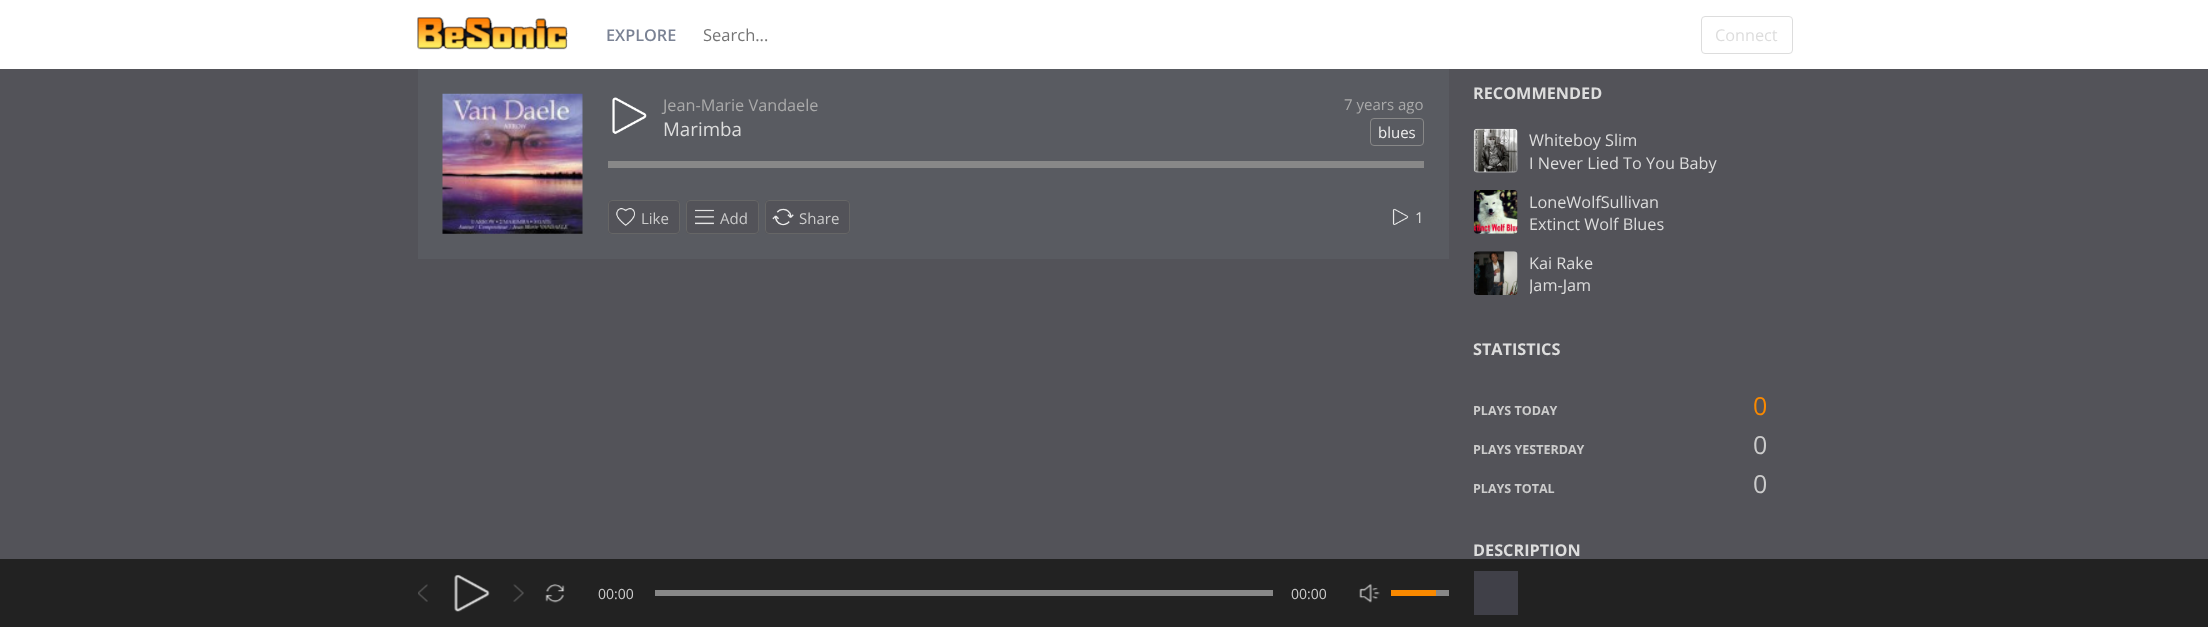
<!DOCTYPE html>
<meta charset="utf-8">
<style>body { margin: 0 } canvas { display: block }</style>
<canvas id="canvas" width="2208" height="627"></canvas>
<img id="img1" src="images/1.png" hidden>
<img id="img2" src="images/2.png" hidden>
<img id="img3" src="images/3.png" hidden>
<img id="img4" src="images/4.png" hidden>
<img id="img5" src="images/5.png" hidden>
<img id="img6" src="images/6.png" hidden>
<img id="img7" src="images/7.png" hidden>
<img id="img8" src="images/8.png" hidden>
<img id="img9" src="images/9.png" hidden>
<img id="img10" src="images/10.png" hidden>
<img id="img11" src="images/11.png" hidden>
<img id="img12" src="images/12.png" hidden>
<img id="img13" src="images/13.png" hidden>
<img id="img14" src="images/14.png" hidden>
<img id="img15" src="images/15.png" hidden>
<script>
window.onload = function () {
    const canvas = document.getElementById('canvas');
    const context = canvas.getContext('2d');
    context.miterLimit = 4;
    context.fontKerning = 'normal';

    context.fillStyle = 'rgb(83, 83, 89)';
    context.fillRect(0, 0, 2208, 627);
    context.fillStyle = 'rgb(255, 255, 255)';
    context.fillRect(0, 0, 2208, 69);
    context.drawImage(document.getElementById('img1'), 417, 17, 151, 33);
    context.beginPath();
    context.roundRect(1701.5, 16.5, 91, 37, 3.5);
    context.strokeStyle = 'rgb(221, 221, 221)';
    context.stroke();
    context.fillStyle = 'rgb(89, 91, 97)';
    context.fillRect(418, 69, 1031, 190);
    context.drawImage(document.getElementById('img2'), 442, 93, 141, 141);
    context.drawImage(document.getElementById('img3'), 612, 97, 35, 37);
    context.beginPath();
    context.roundRect(1370.5, 118.5, 53, 27, 3.5);
    context.strokeStyle = 'rgb(136, 136, 136)';
    context.stroke();
    context.fillStyle = 'rgb(136, 136, 136)';
    context.fillRect(608, 161, 816, 7);
    context.fillStyle = 'rgb(83, 83, 89)';
    context.beginPath();
    context.roundRect(608, 200, 72, 34, 4);
    context.fill();
    context.drawImage(document.getElementById('img4'), 616, 208, 19, 18);
    context.beginPath();
    context.roundRect(608.5, 200.5, 71, 33, 3.5);
    context.strokeStyle = 'rgb(102, 102, 102)';
    context.stroke();
    context.beginPath();
    context.roundRect(686, 200, 73, 34, 4);
    context.fill();
    context.drawImage(document.getElementById('img5'), 695, 209, 19, 16);
    context.beginPath();
    context.roundRect(686.5, 200.5, 72, 33, 3.5);
    context.stroke();
    context.beginPath();
    context.roundRect(765, 200, 85, 34, 4);
    context.fill();
    context.drawImage(document.getElementById('img6'), 772, 208, 22, 18);
    context.beginPath();
    context.roundRect(765.5, 200.5, 84, 33, 3.5);
    context.stroke();
    context.drawImage(document.getElementById('img7'), 1392, 208, 17, 17);
    context.drawImage(document.getElementById('img8'), 1473, 128, 45, 45);
    context.drawImage(document.getElementById('img9'), 1473, 190, 45, 44);
    context.drawImage(document.getElementById('img10'), 1473, 251, 45, 44);
    context.fillStyle = 'rgb(34, 34, 34)';
    context.fillRect(0, 559, 2208, 68);
    context.drawImage(document.getElementById('img11'), 418, 584, 10, 18);
    context.drawImage(document.getElementById('img12'), 454, 574, 36, 38);
    context.drawImage(document.getElementById('img13'), 513, 584, 11, 18);
    context.drawImage(document.getElementById('img14'), 545, 584, 20, 19);
    context.fillStyle = 'rgb(136, 136, 136)';
    context.fillRect(655, 590, 618, 6);
    context.drawImage(document.getElementById('img15'), 1359, 584, 21, 19);
    context.fillRect(1436, 590, 13, 6);
    context.fillStyle = 'rgb(249, 137, 0)';
    context.fillRect(1391, 590, 45, 6);
    context.fillStyle = 'rgb(64, 64, 72)';
    context.fillRect(1474, 571, 44, 44);
    context.font = '600 16.25px Open Sans';
    context.fillStyle = 'rgb(122, 130, 148)';
    context.fillText('EXPLORE', 606, 41);
    context.font = '16.5px Open Sans';
    context.fillStyle = 'rgb(117, 117, 117)';
    context.fillText('Search...', 703, 41);
    context.font = '16.25px Open Sans';
    context.fillStyle = 'rgb(221, 221, 221)';
    context.fillText('Connect', 1715, 41);
    context.fillStyle = 'rgb(170, 170, 170)';
    context.fillText('Jean-Marie Vandaele', 663, 111);
    context.font = '18.75px Open Sans';
    context.fillStyle = 'rgb(221, 221, 221)';
    context.fillText('Marimba', 663, 136);
    context.font = '15px Open Sans';
    context.fillStyle = 'rgb(238, 238, 238)';
    context.fillText('blues', 1378, 138);
    context.fillStyle = 'rgb(170, 170, 170)';
    context.fillText('7 years ago', 1344, 110);
    context.fillStyle = 'rgb(204, 204, 204)';
    context.fillText('Like', 641, 224);
    context.fillText('Add', 720, 224);
    context.fillText('Share', 799, 224);
    context.fillStyle = 'rgb(221, 221, 221)';
    context.fillText('1', 1415, 223);
    context.font = 'bold 16.25px Open Sans';
    context.fillText('RECOMMENDED', 1473, 99);
    context.font = '16.25px Open Sans';
    context.fillText('Whiteboy Slim', 1529, 146);
    context.fillText('I Never Lied To You Baby', 1529, 169);
    context.fillText('LoneWolfSullivan', 1529, 208);
    context.fillText('Extinct Wolf Blues', 1529, 230);
    context.fillText('Kai Rake', 1529, 269);
    context.save();
    context.beginPath();
    context.rect(1530, 274, 200, 22);
    context.clip();
    context.fillText('Jam-Jam', 1529, 291);
    context.restore();
    context.font = 'bold 16.25px Open Sans';
    context.fillText('STATISTICS', 1473, 355);
    context.font = 'bold 12.5px Open Sans';
    context.fillStyle = 'rgb(204, 204, 204)';
    context.fillText('PLAYS TODAY', 1473, 415);
    context.font = '25px Open Sans';
    context.fillStyle = 'rgb(249, 137, 0)';
    context.fillText('0', 1753, 415);
    context.font = 'bold 12.5px Open Sans';
    context.fillStyle = 'rgb(204, 204, 204)';
    context.fillText('PLAYS YESTERDAY', 1473, 454);
    context.font = '25px Open Sans';
    context.fillText('0', 1753, 454);
    context.font = 'bold 12.5px Open Sans';
    context.fillText('PLAYS TOTAL', 1473, 493);
    context.font = '25px Open Sans';
    context.fillText('0', 1753, 493);
    context.font = 'bold 16.25px Open Sans';
    context.fillStyle = 'rgb(221, 221, 221)';
    context.fillText('DESCRIPTION', 1473, 556);
    context.font = '14px Open Sans';
    context.fillStyle = 'rgb(204, 204, 204)';
    context.fillText('00:00', 598, 599);
    context.fillText('00:00', 1291, 599);
};
</script>
